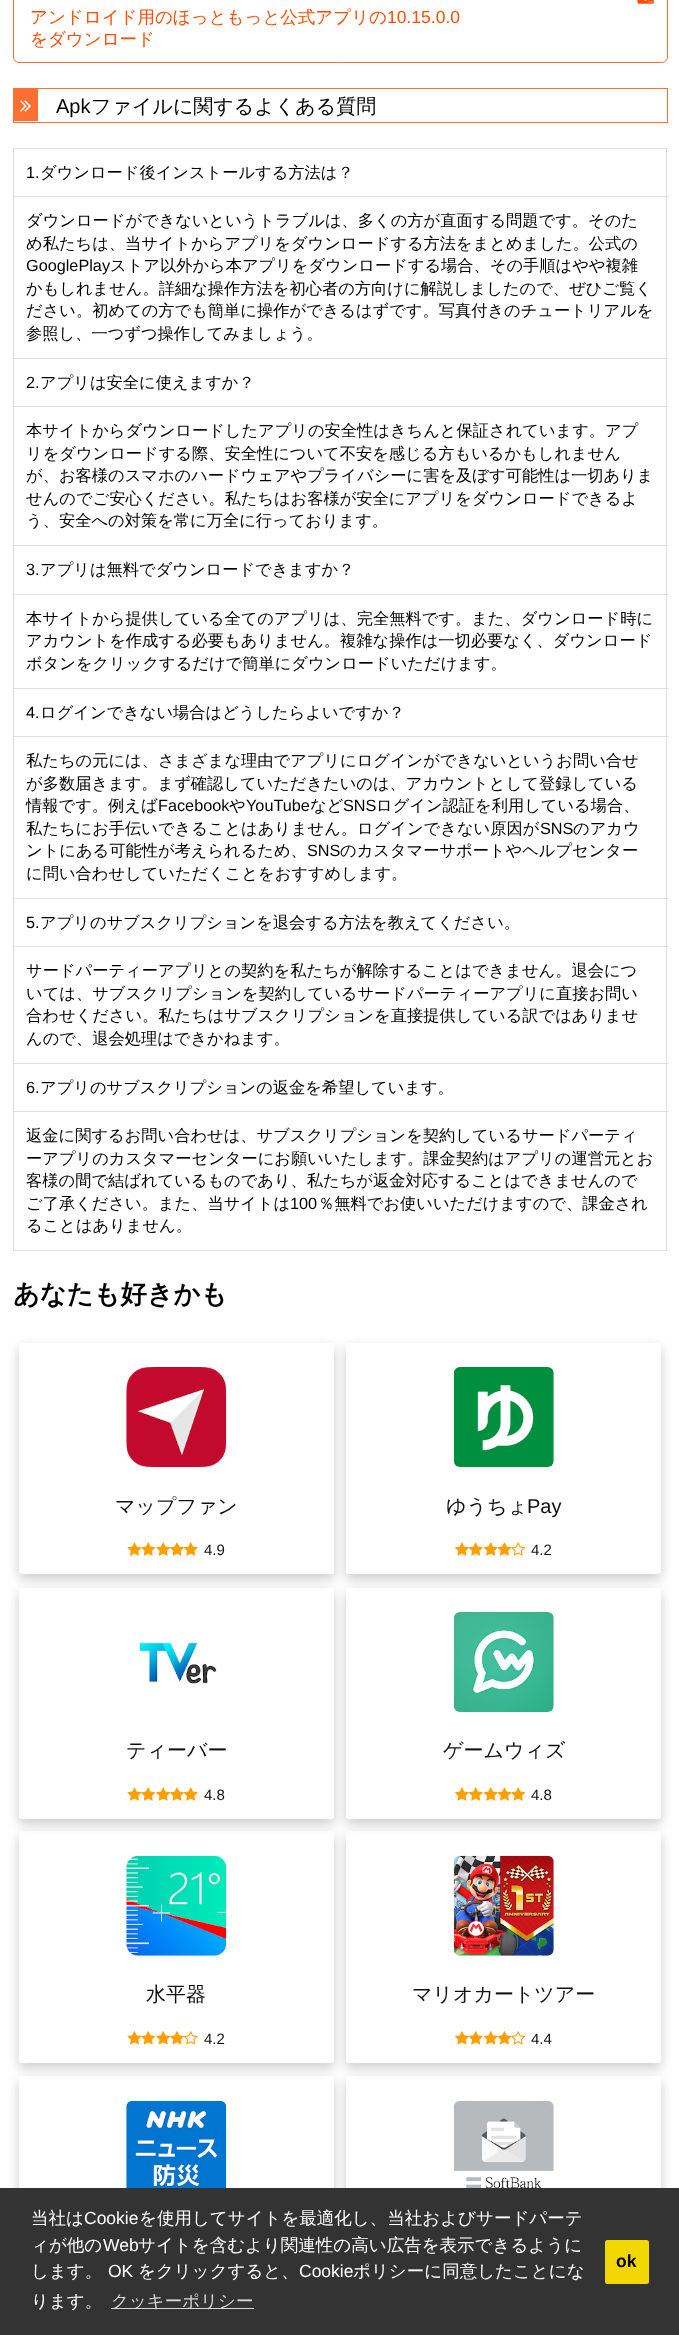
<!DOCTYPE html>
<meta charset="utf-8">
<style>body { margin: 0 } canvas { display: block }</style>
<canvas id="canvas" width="679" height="2335"></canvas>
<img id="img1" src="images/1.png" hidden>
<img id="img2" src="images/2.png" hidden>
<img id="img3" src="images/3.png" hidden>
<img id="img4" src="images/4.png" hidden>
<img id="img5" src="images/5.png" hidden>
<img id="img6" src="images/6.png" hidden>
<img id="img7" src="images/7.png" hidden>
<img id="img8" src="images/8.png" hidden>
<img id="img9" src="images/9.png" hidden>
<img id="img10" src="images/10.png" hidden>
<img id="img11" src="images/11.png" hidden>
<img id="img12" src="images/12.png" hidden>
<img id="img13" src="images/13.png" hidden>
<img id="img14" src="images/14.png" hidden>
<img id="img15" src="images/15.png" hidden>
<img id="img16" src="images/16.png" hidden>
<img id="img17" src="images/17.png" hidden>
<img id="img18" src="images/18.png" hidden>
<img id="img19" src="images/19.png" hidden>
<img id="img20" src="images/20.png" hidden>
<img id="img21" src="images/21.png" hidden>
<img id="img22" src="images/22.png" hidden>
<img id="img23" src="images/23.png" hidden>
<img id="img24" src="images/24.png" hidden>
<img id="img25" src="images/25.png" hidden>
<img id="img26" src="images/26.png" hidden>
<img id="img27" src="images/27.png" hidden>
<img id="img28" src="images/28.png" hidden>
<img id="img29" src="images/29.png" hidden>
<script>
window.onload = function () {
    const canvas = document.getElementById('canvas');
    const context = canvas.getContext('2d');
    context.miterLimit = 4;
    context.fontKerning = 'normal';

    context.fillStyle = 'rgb(255, 255, 255)';
    context.fillRect(0, 0, 679, 2335);
    context.beginPath();
    context.roundRect(13.5, -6.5, 654, 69, 5.5);
    context.strokeStyle = 'rgb(255, 111, 49)';
    context.stroke();
    context.drawImage(document.getElementById('img1'), 637, 0, 17, 4);
    context.strokeRect(13.5, 88.5, 654, 34);
    context.fillStyle = 'rgb(255, 111, 49)';
    context.fillRect(14, 89, 24, 32);
    context.drawImage(document.getElementById('img2'), 20, 100, 11, 12);
    context.fillStyle = 'rgb(221, 221, 221)';
    context.fillRect(13, 148, 655, 1);
    context.fillRect(13, 196, 655, 1);
    context.fillRect(13, 358, 655, 1);
    context.fillRect(13, 406, 655, 1);
    context.fillRect(13, 545, 655, 1);
    context.fillRect(13, 594, 655, 1);
    context.fillRect(13, 688, 655, 1);
    context.fillRect(13, 736, 655, 1);
    context.fillRect(13, 898, 655, 1);
    context.fillRect(13, 946, 655, 1);
    context.fillRect(13, 1063, 655, 1);
    context.fillRect(13, 1111, 655, 1);
    context.fillRect(666, 1111, 1, 140);
    context.fillRect(666, 1063, 1, 50);
    context.fillRect(666, 946, 1, 118);
    context.fillRect(666, 898, 1, 50);
    context.fillRect(666, 736, 1, 163);
    context.fillRect(666, 688, 1, 50);
    context.fillRect(666, 594, 1, 95);
    context.fillRect(666, 545, 1, 50);
    context.fillRect(666, 406, 1, 140);
    context.fillRect(666, 358, 1, 50);
    context.fillRect(666, 196, 1, 163);
    context.fillRect(666, 148, 1, 50);
    context.fillRect(13, 1250, 655, 1);
    context.fillRect(13, 1111, 1, 140);
    context.fillRect(13, 1063, 1, 50);
    context.fillRect(13, 946, 1, 118);
    context.fillRect(13, 898, 1, 50);
    context.fillRect(13, 736, 1, 163);
    context.fillRect(13, 688, 1, 50);
    context.fillRect(13, 594, 1, 95);
    context.fillRect(13, 545, 1, 50);
    context.fillRect(13, 406, 1, 140);
    context.fillRect(13, 358, 1, 50);
    context.fillRect(13, 196, 1, 163);
    context.fillRect(13, 148, 1, 50);
    context.save();
    context.beginPath();
    context.moveTo(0, 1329);
    context.lineTo(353, 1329);
    context.lineTo(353, 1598);
    context.lineTo(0, 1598);
    context.closePath();
    context.moveTo(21.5, 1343);
    context.lineTo(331.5, 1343);
    context.bezierCurveTo(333, 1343, 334, 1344, 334, 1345.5);
    context.lineTo(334, 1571.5);
    context.bezierCurveTo(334, 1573, 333, 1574, 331.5, 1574);
    context.lineTo(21.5, 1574);
    context.bezierCurveTo(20, 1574, 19, 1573, 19, 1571.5);
    context.lineTo(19, 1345.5);
    context.bezierCurveTo(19, 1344, 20, 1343, 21.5, 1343);
    context.closePath();
    context.clip('evenodd');
    context.fillStyle = 'rgb(204, 204, 204)';
    context.filter = 'blur(6px)';
    context.beginPath();
    context.roundRect(19, 1348, 315, 231, 2.5);
    context.fill();
    context.filter = 'none';
    context.restore();
    context.drawImage(document.getElementById('img3'), 126, 1367, 101, 100);
    context.drawImage(document.getElementById('img4'), 127, 1542, 15, 14);
    context.drawImage(document.getElementById('img5'), 141, 1542, 15, 14);
    context.drawImage(document.getElementById('img6'), 156, 1542, 15, 14);
    context.drawImage(document.getElementById('img7'), 170, 1542, 14, 14);
    context.drawImage(document.getElementById('img8'), 183, 1542, 15, 14);
    context.save();
    context.beginPath();
    context.moveTo(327, 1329);
    context.lineTo(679, 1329);
    context.lineTo(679, 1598);
    context.lineTo(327, 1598);
    context.closePath();
    context.moveTo(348.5, 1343);
    context.lineTo(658.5, 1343);
    context.bezierCurveTo(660, 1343, 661, 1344, 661, 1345.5);
    context.lineTo(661, 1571.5);
    context.bezierCurveTo(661, 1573, 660, 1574, 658.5, 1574);
    context.lineTo(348.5, 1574);
    context.bezierCurveTo(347, 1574, 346, 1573, 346, 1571.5);
    context.lineTo(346, 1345.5);
    context.bezierCurveTo(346, 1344, 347, 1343, 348.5, 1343);
    context.closePath();
    context.clip('evenodd');
    context.fillStyle = 'rgb(204, 204, 204)';
    context.filter = 'blur(6px)';
    context.beginPath();
    context.roundRect(346, 1348, 315, 231, 2.5);
    context.fill();
    context.filter = 'none';
    context.restore();
    context.drawImage(document.getElementById('img9'), 453, 1367, 101, 100);
    context.drawImage(document.getElementById('img10'), 455, 1542, 14, 14);
    context.drawImage(document.getElementById('img8'), 468, 1542, 15, 14);
    context.drawImage(document.getElementById('img11'), 483, 1542, 15, 14);
    context.drawImage(document.getElementById('img12'), 497, 1542, 15, 14);
    context.drawImage(document.getElementById('img13'), 511, 1542, 15, 14);
    context.save();
    context.beginPath();
    context.moveTo(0, 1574);
    context.lineTo(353, 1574);
    context.lineTo(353, 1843);
    context.lineTo(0, 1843);
    context.closePath();
    context.moveTo(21.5, 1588);
    context.lineTo(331.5, 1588);
    context.bezierCurveTo(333, 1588, 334, 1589, 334, 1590.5);
    context.lineTo(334, 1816.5);
    context.bezierCurveTo(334, 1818, 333, 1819, 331.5, 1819);
    context.lineTo(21.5, 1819);
    context.bezierCurveTo(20, 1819, 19, 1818, 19, 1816.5);
    context.lineTo(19, 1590.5);
    context.bezierCurveTo(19, 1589, 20, 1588, 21.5, 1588);
    context.closePath();
    context.clip('evenodd');
    context.fillStyle = 'rgb(204, 204, 204)';
    context.filter = 'blur(6px)';
    context.beginPath();
    context.roundRect(19, 1593, 315, 231, 2.5);
    context.fill();
    context.filter = 'none';
    context.restore();
    context.drawImage(document.getElementById('img14'), 139, 1642, 78, 42);
    context.drawImage(document.getElementById('img4'), 127, 1787, 15, 14);
    context.drawImage(document.getElementById('img5'), 141, 1787, 15, 14);
    context.drawImage(document.getElementById('img6'), 156, 1787, 15, 14);
    context.drawImage(document.getElementById('img7'), 170, 1787, 14, 14);
    context.drawImage(document.getElementById('img8'), 183, 1787, 15, 14);
    context.save();
    context.beginPath();
    context.moveTo(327, 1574);
    context.lineTo(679, 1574);
    context.lineTo(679, 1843);
    context.lineTo(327, 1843);
    context.closePath();
    context.moveTo(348.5, 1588);
    context.lineTo(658.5, 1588);
    context.bezierCurveTo(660, 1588, 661, 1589, 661, 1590.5);
    context.lineTo(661, 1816.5);
    context.bezierCurveTo(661, 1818, 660, 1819, 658.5, 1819);
    context.lineTo(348.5, 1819);
    context.bezierCurveTo(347, 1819, 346, 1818, 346, 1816.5);
    context.lineTo(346, 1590.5);
    context.bezierCurveTo(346, 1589, 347, 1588, 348.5, 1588);
    context.closePath();
    context.clip('evenodd');
    context.fillStyle = 'rgb(204, 204, 204)';
    context.filter = 'blur(6px)';
    context.beginPath();
    context.roundRect(346, 1593, 315, 231, 2.5);
    context.fill();
    context.filter = 'none';
    context.restore();
    context.drawImage(document.getElementById('img15'), 453, 1612, 101, 100);
    context.drawImage(document.getElementById('img10'), 455, 1787, 14, 14);
    context.drawImage(document.getElementById('img8'), 468, 1787, 15, 14);
    context.drawImage(document.getElementById('img11'), 483, 1787, 15, 14);
    context.drawImage(document.getElementById('img12'), 497, 1787, 15, 14);
    context.drawImage(document.getElementById('img5'), 511, 1787, 15, 14);
    context.save();
    context.beginPath();
    context.moveTo(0, 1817);
    context.lineTo(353, 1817);
    context.lineTo(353, 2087);
    context.lineTo(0, 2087);
    context.closePath();
    context.moveTo(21.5, 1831);
    context.lineTo(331.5, 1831);
    context.bezierCurveTo(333, 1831, 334, 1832, 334, 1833.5);
    context.lineTo(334, 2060.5);
    context.bezierCurveTo(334, 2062, 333, 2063, 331.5, 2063);
    context.lineTo(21.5, 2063);
    context.bezierCurveTo(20, 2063, 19, 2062, 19, 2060.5);
    context.lineTo(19, 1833.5);
    context.bezierCurveTo(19, 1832, 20, 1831, 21.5, 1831);
    context.closePath();
    context.clip('evenodd');
    context.fillStyle = 'rgb(204, 204, 204)';
    context.filter = 'blur(6px)';
    context.beginPath();
    context.roundRect(19, 1836, 315, 232, 2.5);
    context.fill();
    context.filter = 'none';
    context.restore();
    context.drawImage(document.getElementById('img16'), 126, 1855, 101, 101);
    context.drawImage(document.getElementById('img17'), 127, 2031, 15, 14);
    context.drawImage(document.getElementById('img18'), 141, 2031, 15, 14);
    context.drawImage(document.getElementById('img19'), 156, 2031, 15, 14);
    context.drawImage(document.getElementById('img20'), 170, 2031, 14, 14);
    context.drawImage(document.getElementById('img21'), 183, 2031, 15, 14);
    context.save();
    context.beginPath();
    context.moveTo(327, 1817);
    context.lineTo(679, 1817);
    context.lineTo(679, 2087);
    context.lineTo(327, 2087);
    context.closePath();
    context.moveTo(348.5, 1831);
    context.lineTo(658.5, 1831);
    context.bezierCurveTo(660, 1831, 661, 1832, 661, 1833.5);
    context.lineTo(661, 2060.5);
    context.bezierCurveTo(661, 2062, 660, 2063, 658.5, 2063);
    context.lineTo(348.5, 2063);
    context.bezierCurveTo(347, 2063, 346, 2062, 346, 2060.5);
    context.lineTo(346, 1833.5);
    context.bezierCurveTo(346, 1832, 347, 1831, 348.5, 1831);
    context.closePath();
    context.clip('evenodd');
    context.fillStyle = 'rgb(204, 204, 204)';
    context.filter = 'blur(6px)';
    context.beginPath();
    context.roundRect(346, 1836, 315, 232, 2.5);
    context.fill();
    context.filter = 'none';
    context.restore();
    context.drawImage(document.getElementById('img22'), 453, 1855, 101, 101);
    context.drawImage(document.getElementById('img23'), 455, 2031, 14, 14);
    context.drawImage(document.getElementById('img24'), 468, 2031, 15, 14);
    context.drawImage(document.getElementById('img25'), 483, 2031, 15, 14);
    context.drawImage(document.getElementById('img26'), 497, 2031, 15, 14);
    context.drawImage(document.getElementById('img27'), 511, 2031, 15, 14);
    context.save();
    context.beginPath();
    context.moveTo(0, 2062);
    context.lineTo(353, 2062);
    context.lineTo(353, 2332);
    context.lineTo(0, 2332);
    context.closePath();
    context.moveTo(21.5, 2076);
    context.lineTo(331.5, 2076);
    context.bezierCurveTo(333, 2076, 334, 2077, 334, 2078.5);
    context.lineTo(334, 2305.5);
    context.bezierCurveTo(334, 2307, 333, 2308, 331.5, 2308);
    context.lineTo(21.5, 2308);
    context.bezierCurveTo(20, 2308, 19, 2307, 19, 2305.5);
    context.lineTo(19, 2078.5);
    context.bezierCurveTo(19, 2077, 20, 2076, 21.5, 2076);
    context.closePath();
    context.clip('evenodd');
    context.fillStyle = 'rgb(204, 204, 204)';
    context.filter = 'blur(6px)';
    context.beginPath();
    context.roundRect(19, 2081, 315, 232, 2.5);
    context.fill();
    context.filter = 'none';
    context.restore();
    context.drawImage(document.getElementById('img28'), 126, 2100, 101, 88);
    context.save();
    context.beginPath();
    context.moveTo(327, 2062);
    context.lineTo(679, 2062);
    context.lineTo(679, 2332);
    context.lineTo(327, 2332);
    context.closePath();
    context.moveTo(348.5, 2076);
    context.lineTo(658.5, 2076);
    context.bezierCurveTo(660, 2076, 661, 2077, 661, 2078.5);
    context.lineTo(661, 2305.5);
    context.bezierCurveTo(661, 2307, 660, 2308, 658.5, 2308);
    context.lineTo(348.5, 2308);
    context.bezierCurveTo(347, 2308, 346, 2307, 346, 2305.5);
    context.lineTo(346, 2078.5);
    context.bezierCurveTo(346, 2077, 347, 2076, 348.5, 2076);
    context.closePath();
    context.clip('evenodd');
    context.fillStyle = 'rgb(204, 204, 204)';
    context.filter = 'blur(6px)';
    context.beginPath();
    context.roundRect(346, 2081, 315, 232, 2.5);
    context.fill();
    context.filter = 'none';
    context.restore();
    context.drawImage(document.getElementById('img29'), 453, 2100, 101, 88);
    context.fillStyle = 'rgb(51, 51, 51)';
    context.fillRect(0, 2188, 679, 147);
    context.fillStyle = 'rgb(214, 214, 214)';
    context.fillRect(111, 2308, 143, 1);
    context.fillStyle = 'rgb(241, 214, 0)';
    context.beginPath();
    context.roundRect(605, 2240, 44, 44, 2.5);
    context.fill();
    context.font = '500 17.5px WenQuanYi Zen Hei';
    context.fillStyle = 'rgb(255, 77, 0)';
    context.fillText('アンドロイド用のほっともっと公式アプリの', 30, 23);
    context.font = '17.5px Liberation Sans';
    context.fillText('10.15.0.0', 387, 23);
    context.font = '500 17.5px WenQuanYi Zen Hei';
    context.fillText('をダウンロード', 30, 45);
    context.font = '20px Liberation Sans';
    context.fillStyle = 'rgb(0, 0, 0)';
    context.fillText('Apk', 56, 113);
    context.font = '500 20px WenQuanYi Zen Hei';
    context.fillText('ファイルに関するよくある質問', 91, 113);
    context.font = '16.25px Liberation Sans';
    context.fillText('1.', 26, 178);
    context.font = '500 16.25px WenQuanYi Zen Hei';
    context.fillText('ダウンロード後インストールする方法は？', 40, 178);
    context.fillText('ダウンロードができないというトラブルは、多くの方が直面する問題です。そのた', 26, 226);
    context.fillText('め私たちは、当サイトからアプリをダウンロードする方法をまとめました。公式の', 26, 249);
    context.font = '16.25px Liberation Sans';
    context.fillText('GooglePlay', 26, 271);
    context.font = '500 16.25px WenQuanYi Zen Hei';
    context.fillText('ストア以外から本アプリをダウンロードする場合、その手順はやや複雑', 110, 271);
    context.fillText('かもしれません。詳細な操作方法を初心者の方向けに解説しましたので、ぜひご覧く', 26, 294);
    context.fillText('ださい。初めての方でも簡単に操作ができるはずです。写真付きのチュートリアルを', 26, 316);
    context.fillText('参照し、一つずつ操作してみましょう。', 26, 339);
    context.font = '16.25px Liberation Sans';
    context.fillText('2.', 26, 388);
    context.font = '500 16.25px WenQuanYi Zen Hei';
    context.fillText('アプリは安全に使えますか？', 40, 388);
    context.fillText('本サイトからダウンロードしたアプリの安全性はきちんと保証されています。アプ', 26, 436);
    context.fillText('リをダウンロードする際、安全性について不安を感じる方もいるかもしれません', 26, 459);
    context.fillText('が、お客様のスマホのハードウェアやプライバシーに害を及ぼす可能性は一切ありま', 26, 481);
    context.fillText('せんのでご安心ください。私たちはお客様が安全にアプリをダウンロードできるよ', 26, 504);
    context.fillText('う、安全への対策を常に万全に行っております。', 26, 526);
    context.font = '16.25px Liberation Sans';
    context.fillText('3.', 26, 575);
    context.font = '500 16.25px WenQuanYi Zen Hei';
    context.fillText('アプリは無料でダウンロードできますか？', 40, 575);
    context.fillText('本サイトから提供している全てのアプリは、完全無料です。また、ダウンロード時に', 26, 624);
    context.fillText('アカウントを作成する必要もありません。複雑な操作は一切必要なく、ダウンロード', 26, 646);
    context.fillText('ボタンをクリックするだけで簡単にダウンロードいただけます。', 26, 669);
    context.font = '16.25px Liberation Sans';
    context.fillText('4.', 26, 718);
    context.font = '500 16.25px WenQuanYi Zen Hei';
    context.fillText('ログインできない場合はどうしたらよいですか？', 40, 718);
    context.fillText('私たちの元には、さまざまな理由でアプリにログインができないというお問い合せ', 26, 766);
    context.fillText('が多数届きます。まず確認していただきたいのは、アカウントとして登録している', 26, 789);
    context.fillText('情報です。例えば', 26, 811);
    context.font = '16.25px Liberation Sans';
    context.fillText('Facebook', 158, 811);
    context.font = '500 16.25px WenQuanYi Zen Hei';
    context.fillText('や', 229, 811);
    context.font = '16.25px Liberation Sans';
    context.fillText('YouTube', 246, 811);
    context.font = '500 16.25px WenQuanYi Zen Hei';
    context.fillText('など', 310, 811);
    context.font = '16.25px Liberation Sans';
    context.fillText('SNS', 343, 811);
    context.font = '500 16.25px WenQuanYi Zen Hei';
    context.fillText('ログイン認証を利用している場合、', 376, 811);
    context.fillText('私たちにお手伝いできることはありません。ログインできない原因が', 26, 834);
    context.font = '16.25px Liberation Sans';
    context.fillText('SNS', 540, 834);
    context.font = '500 16.25px WenQuanYi Zen Hei';
    context.fillText('のアカウ', 573, 834);
    context.fillText('ントにある可能性が考えられるため、', 26, 856);
    context.font = '16.25px Liberation Sans';
    context.fillText('SNS', 307, 856);
    context.font = '500 16.25px WenQuanYi Zen Hei';
    context.fillText('のカスタマーサポートやヘルプセンター', 340, 856);
    context.fillText('に問い合わせしていただくことをおすすめします。', 26, 879);
    context.font = '16.25px Liberation Sans';
    context.fillText('5.', 26, 928);
    context.font = '500 16.25px WenQuanYi Zen Hei';
    context.fillText('アプリのサブスクリプションを退会する方法を教えてください。', 40, 928);
    context.fillText('サードパーティーアプリとの契約を私たちが解除することはできません。退会につ', 26, 976);
    context.fillText('いては、サブスクリプションを契約しているサードパーティーアプリに直接お問い', 26, 999);
    context.fillText('合わせください。私たちはサブスクリプションを直接提供している訳ではありませ', 26, 1021);
    context.fillText('んので、退会処理はできかねます。', 26, 1044);
    context.font = '16.25px Liberation Sans';
    context.fillText('6.', 26, 1093);
    context.font = '500 16.25px WenQuanYi Zen Hei';
    context.fillText('アプリのサブスクリプションの返金を希望しています。', 40, 1093);
    context.fillText('返金に関するお問い合わせは、サブスクリプションを契約しているサードパーティ', 26, 1141);
    context.fillText('ーアプリのカスタマーセンターにお願いいたします。課金契約はアプリの運営元とお', 26, 1164);
    context.fillText('客様の間で結ばれているものであり、私たちが返金対応することはできませんので', 26, 1186);
    context.fillText('ご了承ください。また、当サイトは', 26, 1209);
    context.font = '16.25px Liberation Sans';
    context.fillText('100', 290, 1209);
    context.font = '500 16.25px WenQuanYi Zen Hei';
    context.fillText('％無料でお使いいただけますので、課金され', 318, 1209);
    context.fillText('ることはありません。', 26, 1231);
    context.font = 'bold 26.25px WenQuanYi Zen Hei';
    context.fillText('あなたも好きかも', 13, 1303);
    context.font = '500 20px WenQuanYi Zen Hei';
    context.fillStyle = 'rgb(16, 16, 16)';
    context.fillText('マップファン', 115, 1513);
    context.font = '15px Liberation Sans';
    context.fillText('4.9', 204, 1555);
    context.font = '500 20px WenQuanYi Zen Hei';
    context.fillText('ゆうちょ', 446, 1513);
    context.font = '20px Liberation Sans';
    context.fillText('Pay', 527, 1513);
    context.font = '15px Liberation Sans';
    context.fillText('4.2', 531, 1555);
    context.font = '500 20px WenQuanYi Zen Hei';
    context.fillText('ティーバー', 126, 1757);
    context.font = '15px Liberation Sans';
    context.fillText('4.8', 204, 1800);
    context.font = '500 20px WenQuanYi Zen Hei';
    context.fillText('ゲームウィズ', 443, 1757);
    context.font = '15px Liberation Sans';
    context.fillText('4.8', 531, 1800);
    context.font = '500 20px WenQuanYi Zen Hei';
    context.fillText('水平器', 146, 2001);
    context.font = '15px Liberation Sans';
    context.fillText('4.2', 204, 2044);
    context.font = '500 20px WenQuanYi Zen Hei';
    context.fillText('マリオカートツアー', 412, 2001);
    context.font = '15px Liberation Sans';
    context.fillText('4.4', 531, 2044);
    context.font = '500 17.5px WenQuanYi Zen Hei';
    context.fillStyle = 'rgb(255, 255, 255)';
    context.fillText('当社は', 31, 2224);
    context.font = '17.5px Liberation Sans';
    context.fillText('Cookie', 84, 2224);
    context.font = '500 17.5px WenQuanYi Zen Hei';
    context.fillText('を使用してサイトを最適化し、当社およびサードパーテ', 139, 2224);
    context.fillText('ィが他の', 31, 2251);
    context.font = '17.5px Liberation Sans';
    context.fillText('Web', 103, 2251);
    context.font = '500 17.5px WenQuanYi Zen Hei';
    context.fillText('サイトを含むより関連性の高い広告を表示できるように', 138, 2251);
    context.fillText('します。', 31, 2277);
    context.font = '17.5px Liberation Sans';
    context.fillText('OK', 108, 2277);
    context.font = '500 17.5px WenQuanYi Zen Hei';
    context.fillText('をクリックすると、', 138, 2277);
    context.font = '17.5px Liberation Sans';
    context.fillText('Cookie', 299, 2277);
    context.font = '500 17.5px WenQuanYi Zen Hei';
    context.fillText('ポリシーに同意したことにな', 353, 2277);
    context.fillText('ります。', 31, 2307);
    context.fillStyle = 'rgb(214, 214, 214)';
    context.fillText('クッキーポリシー', 111, 2307);
    context.font = 'bold 17.5px Liberation Sans';
    context.fillStyle = 'rgb(0, 0, 0)';
    context.fillText('ok', 616, 2267);
};
</script>
